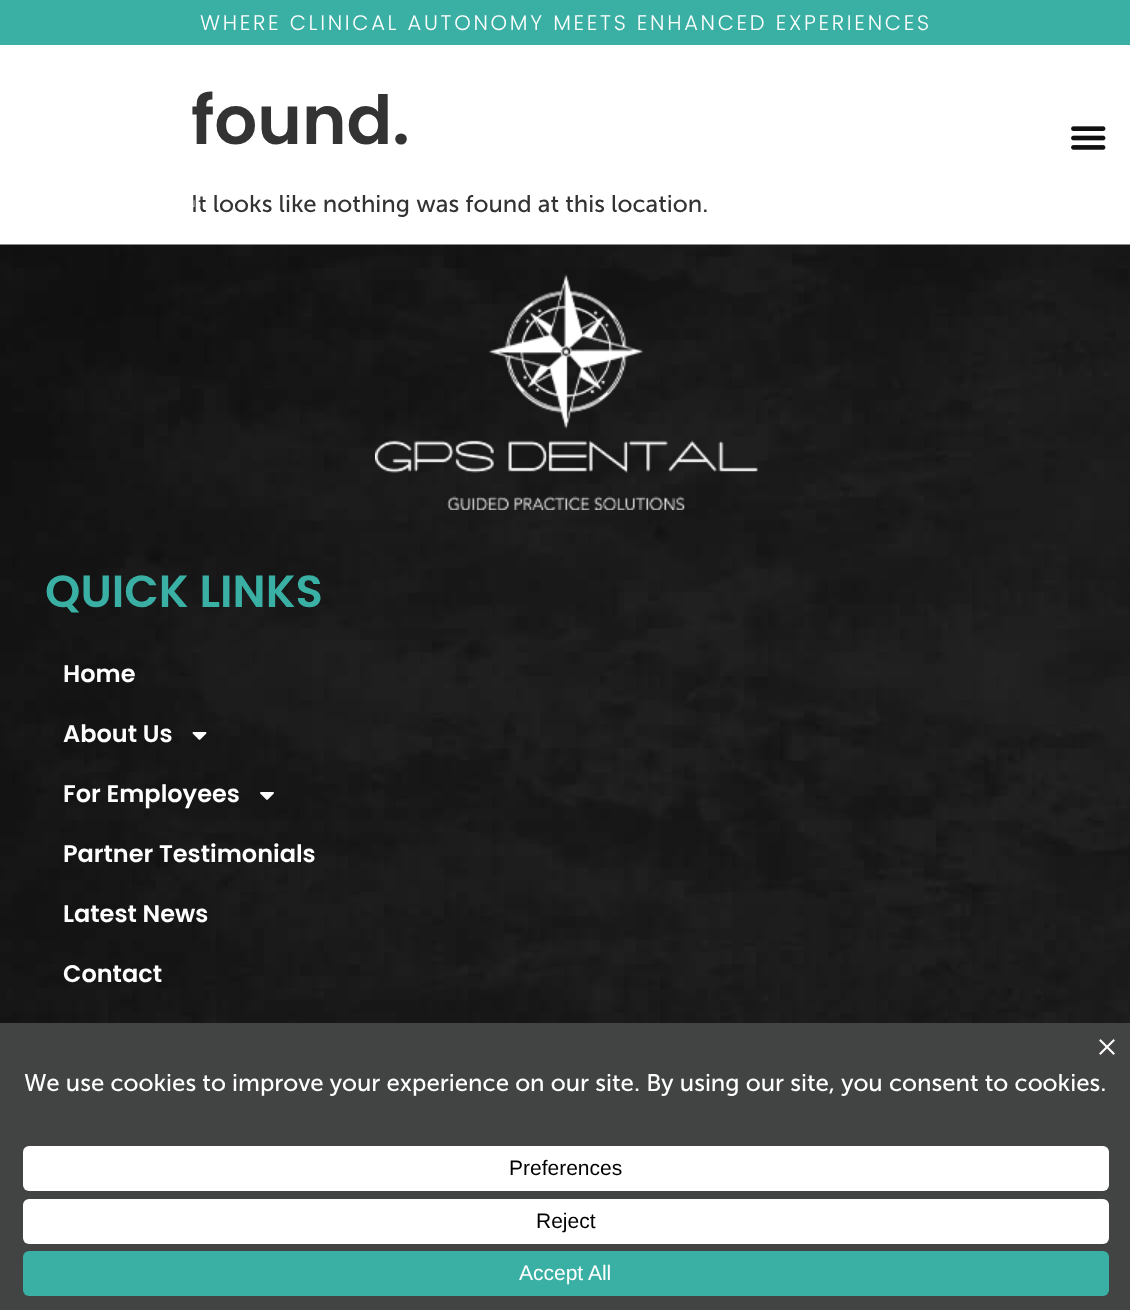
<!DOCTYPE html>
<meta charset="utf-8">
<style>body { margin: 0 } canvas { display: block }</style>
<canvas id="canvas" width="1130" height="1310"></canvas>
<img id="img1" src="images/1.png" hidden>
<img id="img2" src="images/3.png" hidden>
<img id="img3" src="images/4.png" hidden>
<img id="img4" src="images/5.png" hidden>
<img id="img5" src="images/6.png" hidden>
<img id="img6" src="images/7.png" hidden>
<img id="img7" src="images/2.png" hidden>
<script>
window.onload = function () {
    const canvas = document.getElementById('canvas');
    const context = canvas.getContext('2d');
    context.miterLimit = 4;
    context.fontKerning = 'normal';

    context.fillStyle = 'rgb(255, 255, 255)';
    context.fillRect(0, 0, 1130, 1310);
    context.fillStyle = 'rgb(58, 176, 165)';
    context.fillRect(0, 0, 1130, 45);
    context.drawImage(document.getElementById('img1'), 1071, 126, 35, 24);
    context.drawImage(document.getElementById('img2'), 0, 244, 1130, 779);
    context.drawImage(document.getElementById('img3'), 375, 274, 383, 236);
    context.drawImage(document.getElementById('img4'), 192, 732, 15, 8);
    context.drawImage(document.getElementById('img5'), 260, 792, 14, 8);
    context.fillStyle = 'rgb(66, 67, 67)';
    context.fillRect(0, 1023, 1130, 287);
    context.drawImage(document.getElementById('img6'), 1098, 1038, 18, 18);
    context.fillStyle = 'rgb(255, 255, 255)';
    context.beginPath();
    context.roundRect(23, 1146, 1086, 45, 6);
    context.fill();
    context.beginPath();
    context.roundRect(23, 1199, 1086, 45, 6);
    context.fill();
    context.fillStyle = 'rgb(58, 176, 165)';
    context.beginPath();
    context.roundRect(23, 1251, 1086, 45, 6);
    context.fill();
    context.letterSpacing = '2.7px';
    context.font = '300 21px Poppins';
    context.fillStyle = 'rgb(255, 255, 255)';
    context.fillText('WHERE CLINICAL AUTONOMY MEETS ENHANCED EXPERIENCES', 200, 30);
    context.letterSpacing = '0px';
    context.font = '600 67.5px Poppins';
    context.fillStyle = 'rgb(51, 51, 51)';
    context.fillText('found.', 191, 144);
    context.font = '24px Museo Sans';
    context.fillText('It looks like nothing was found at this location.', 191, 212);
    context.drawImage(document.getElementById('img7'), 192, 199, 9, 8);
    context.font = '600 45px Poppins';
    context.fillStyle = 'rgb(58, 176, 165)';
    context.fillText('QUICK LINKS', 45, 607);
    context.font = '600 24px Poppins';
    context.fillStyle = 'rgb(255, 255, 255)';
    context.fillText('Home', 63, 682);
    context.fillText('About Us', 63, 742);
    context.fillText('For Employees', 63, 802);
    context.fillText('Partner Testimonials', 63, 862);
    context.fillText('Latest News', 63, 922);
    context.fillText('Contact', 63, 982);
    context.font = '24px Museo Sans';
    context.fillText('We use cookies to improve your experience on our site. By using our site, you consent to cookies.', 24, 1091);
    context.font = '21px Liberation Sans';
    context.fillStyle = 'rgb(0, 0, 0)';
    context.fillText('Preferences', 509, 1175);
    context.fillText('Reject', 536, 1228);
    context.fillStyle = 'rgb(255, 255, 255)';
    context.fillText('Accept All', 519, 1280);
};
</script>
